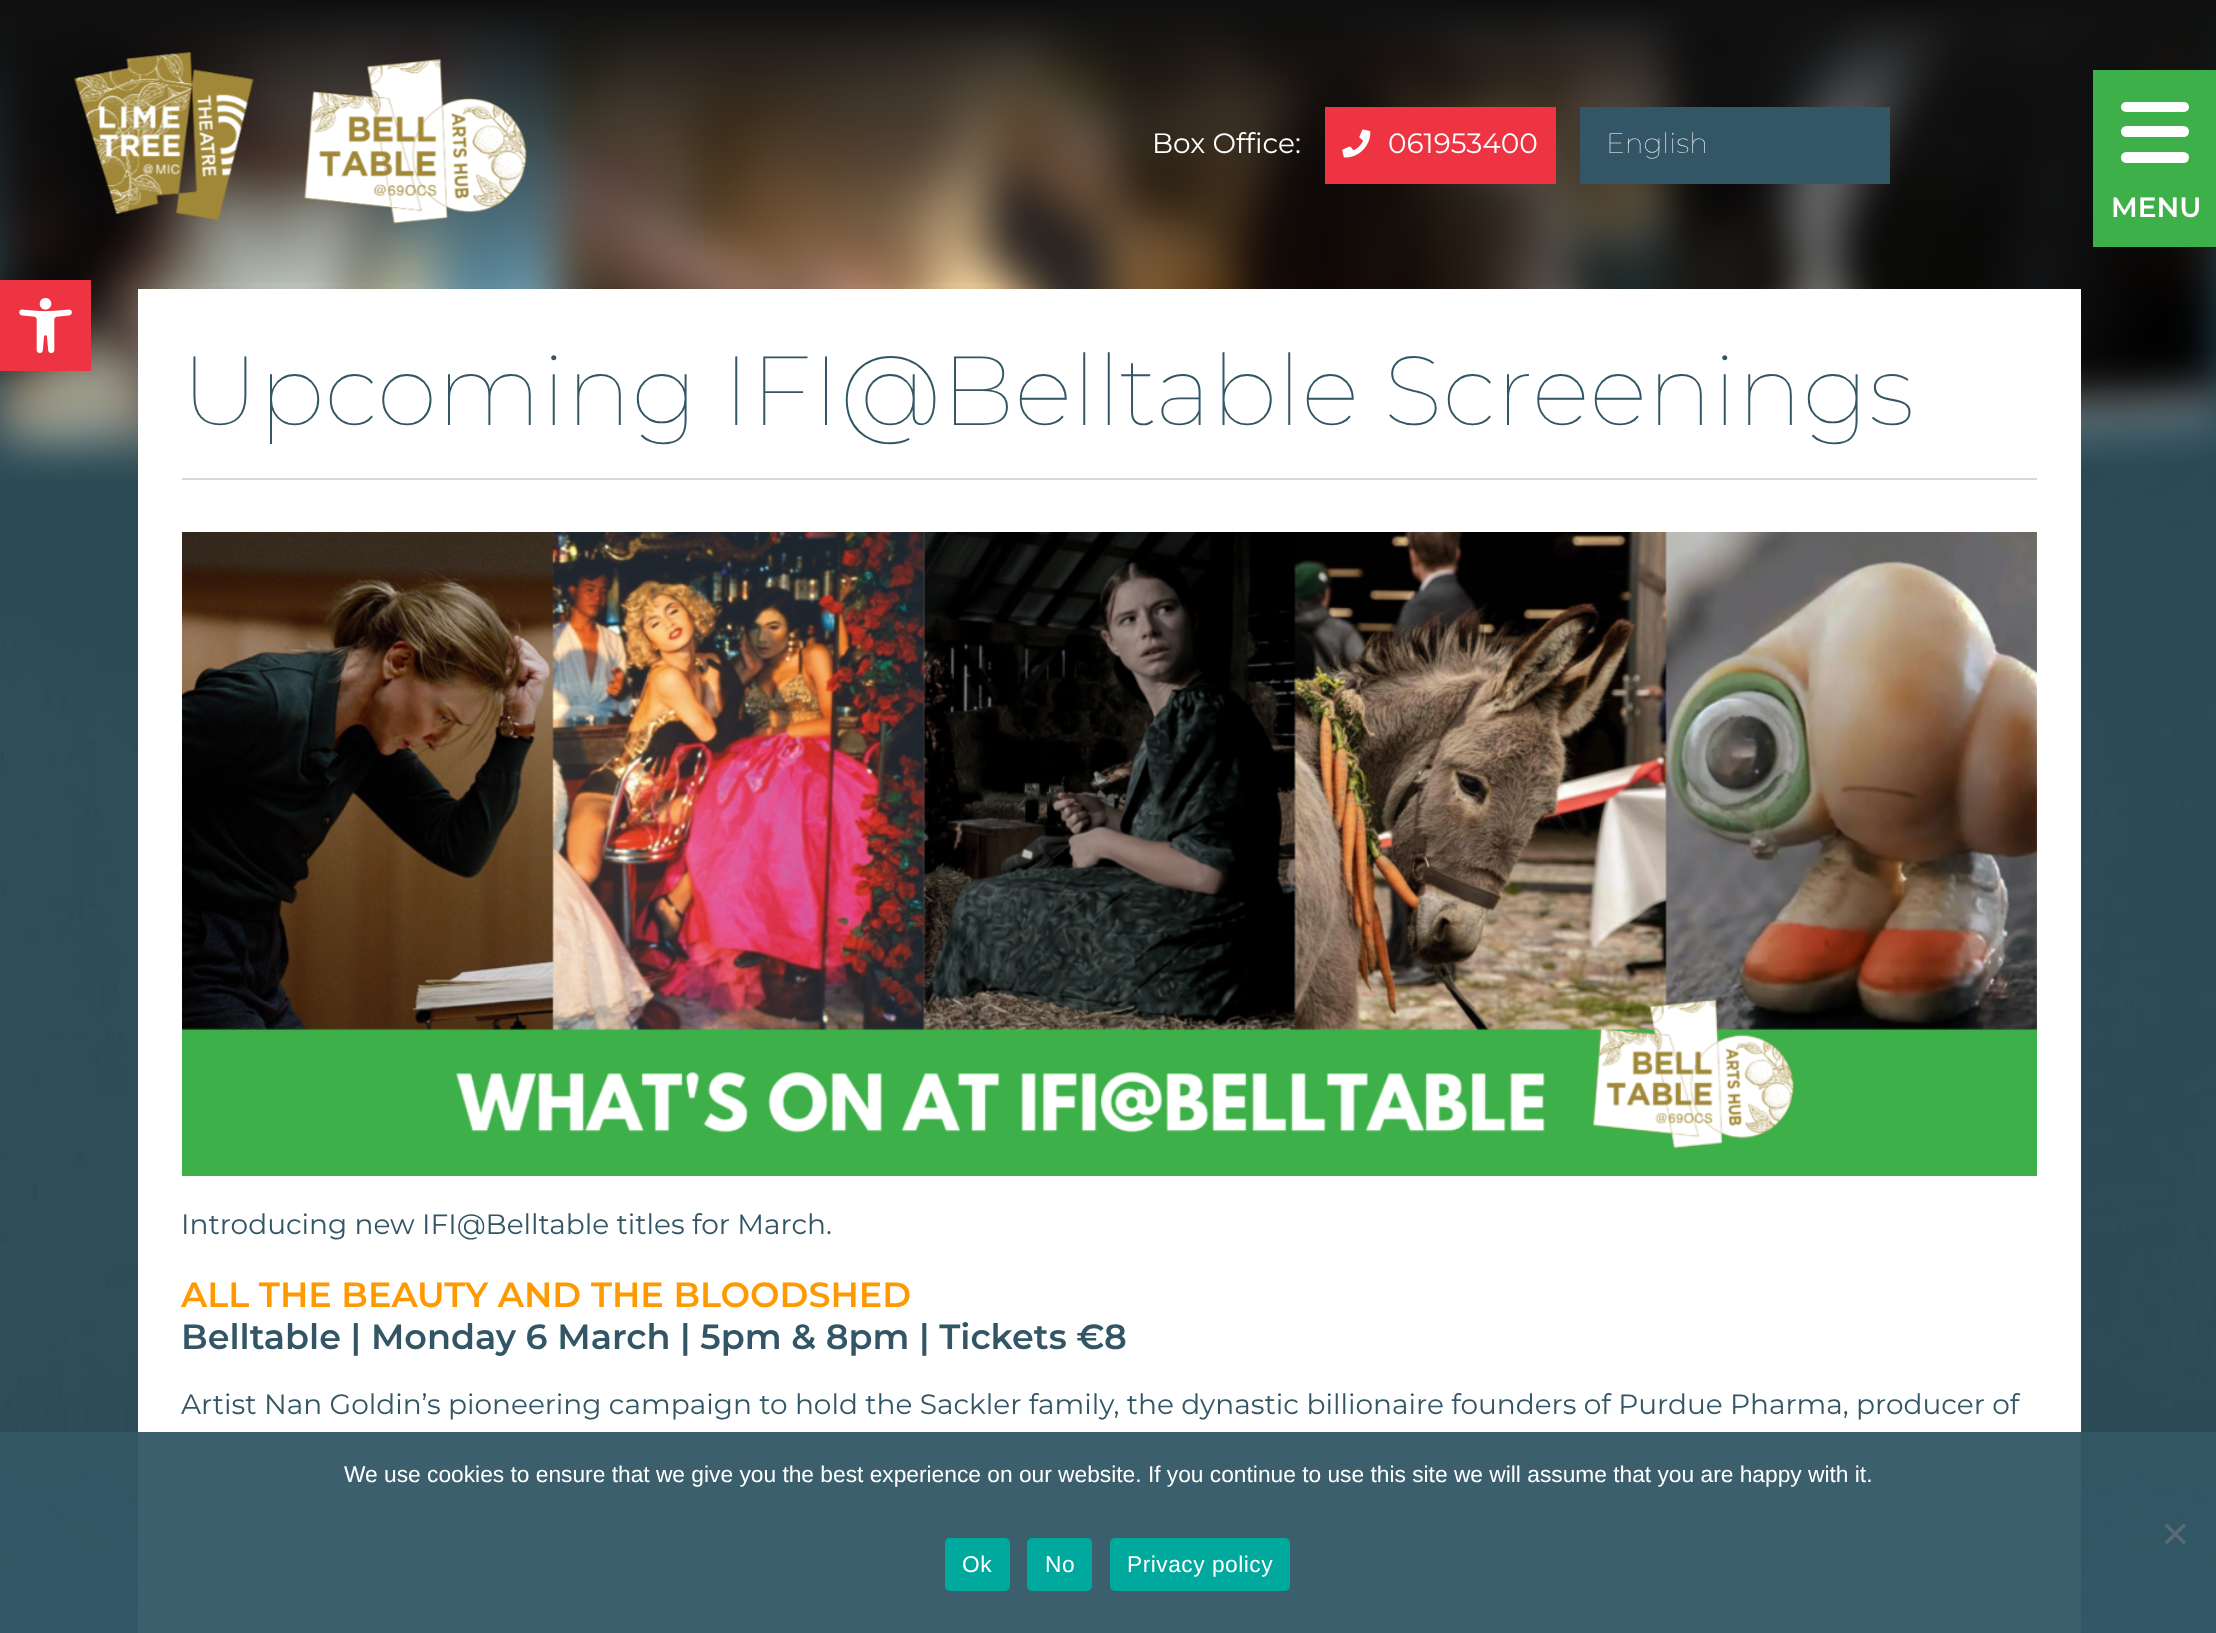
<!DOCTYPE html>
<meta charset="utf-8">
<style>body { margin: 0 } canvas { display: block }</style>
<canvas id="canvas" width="2216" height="1633"></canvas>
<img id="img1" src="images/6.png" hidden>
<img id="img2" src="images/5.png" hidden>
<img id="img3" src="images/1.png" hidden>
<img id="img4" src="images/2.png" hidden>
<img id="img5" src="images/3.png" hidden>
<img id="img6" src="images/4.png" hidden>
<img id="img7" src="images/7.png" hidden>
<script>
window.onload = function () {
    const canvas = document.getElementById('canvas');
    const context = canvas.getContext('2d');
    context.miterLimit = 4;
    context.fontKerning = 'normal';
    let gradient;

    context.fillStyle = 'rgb(255, 255, 255)';
    context.fillRect(0, 0, 2216, 1633);
    context.drawImage(document.getElementById('img1'), 0, 2, 2216, 1631);
    context.drawImage(document.getElementById('img2'), 0, 2, 2216, 478);
    gradient = context.createLinearGradient(1109, 289, 1109, 0);
    gradient.addColorStop(0, 'rgba(15, 15, 15, 0)');
    gradient.addColorStop(1, 'rgb(15, 15, 15)');
    context.fillStyle = gradient;
    context.fillRect(0, 0, 2216, 283);
    context.drawImage(document.getElementById('img3'), 74, 52, 180, 169);
    context.drawImage(document.getElementById('img4'), 304, 58, 223, 166);
    context.fillStyle = 'rgb(238, 52, 66)';
    context.fillRect(1325, 107, 231, 77);
    context.drawImage(document.getElementById('img5'), 1342, 129, 29, 29);
    context.fillStyle = 'rgb(50, 86, 101)';
    context.fillRect(1580, 107, 310, 77);
    context.fillStyle = 'rgb(62, 176, 73)';
    context.fillRect(2093, 70, 123, 177);
    context.fillStyle = 'rgb(255, 255, 255)';
    context.beginPath();
    context.roundRect(2121, 102, 68, 10, 5);
    context.fill();
    context.beginPath();
    context.roundRect(2121, 126, 68, 11, 5.5);
    context.fill();
    context.beginPath();
    context.roundRect(2121, 152, 68, 11, 5.5);
    context.fill();
    context.fillStyle = 'rgba(0, 0, 0, 0.1)';
    context.filter = 'blur(9px)';
    context.beginPath();
    context.rect(0, 280, 91, 91);
    context.fill();
    context.filter = 'none';
    context.fillStyle = 'rgb(238, 52, 66)';
    context.fillRect(0, 280, 91, 91);
    context.drawImage(document.getElementById('img6'), 19, 298, 53, 56);
    context.fillStyle = 'rgb(255, 255, 255)';
    context.fillRect(138, 289, 1943, 1344);
    context.fillStyle = 'rgb(214, 216, 219)';
    context.fillRect(182, 478, 1855, 2);
    context.drawImage(document.getElementById('img7'), 182, 532, 1855, 644);
    context.fillStyle = 'rgba(50, 86, 101, 0.95)';
    context.fillRect(0, 1432, 2216, 201);
    context.fillStyle = 'rgb(89, 107, 114)';
    context.beginPath();
    context.moveTo(2183.5, 1523.5);
    context.lineTo(2186, 1526);
    context.lineTo(2167, 1544.5);
    context.lineTo(2164.5, 1542);
    context.closePath();
    context.fill();
    context.beginPath();
    context.moveTo(2164.5, 1526);
    context.lineTo(2167, 1523.5);
    context.lineTo(2186, 1542);
    context.lineTo(2183.5, 1544.5);
    context.closePath();
    context.fill();
    context.fillStyle = 'rgb(0, 169, 157)';
    context.beginPath();
    context.roundRect(945, 1538, 65, 53, 5);
    context.fill();
    context.beginPath();
    context.roundRect(1027, 1538, 65, 53, 5);
    context.fill();
    context.beginPath();
    context.roundRect(1110, 1538, 180, 53, 5);
    context.fill();
    context.font = '28px Montserrat';
    context.fillStyle = 'rgb(255, 255, 255)';
    context.fillText('Box Office:', 1152, 153);
    context.fillText('061953400', 1388, 153);
    context.font = '100 28px Montserrat';
    context.fillText('English', 1606, 153);
    context.font = '600 28px Montserrat';
    context.fillText('MENU', 2111, 217);
    context.font = '100 98px Montserrat';
    context.fillStyle = 'rgb(50, 86, 101)';
    context.fillText('Upcoming IFI@Belltable Screenings', 181, 425);
    context.font = '28px Montserrat';
    context.fillText('Introducing new IFI@Belltable titles for March.', 181, 1234);
    context.font = '600 35px Montserrat';
    context.fillStyle = 'rgb(255, 153, 0)';
    context.fillText('ALL THE BEAUTY AND THE BLOODSHED', 181, 1307);
    context.fillStyle = 'rgb(50, 86, 101)';
    context.fillText('Belltable | Monday 6 March | 5pm & 8pm | Tickets €8', 181, 1349);
    context.font = '28px Montserrat';
    context.fillText('Artist Nan Goldin’s pioneering campaign to hold the Sackler family, the dynastic billionaire founders of Purdue Pharma, producer of', 181, 1414);
    context.font = '22.75px Liberation Sans';
    context.fillStyle = 'rgb(255, 255, 255)';
    context.fillText('We use cookies to ensure that we give you the best experience on our website. If you continue to use this site we will assume that you are happy with it.', 344, 1482);
    context.letterSpacing = '0.5px';
    context.fillText('Ok', 962, 1572);
    context.fillText('No', 1045, 1572);
    context.fillText('Privacy policy', 1127, 1572);
};
</script>
